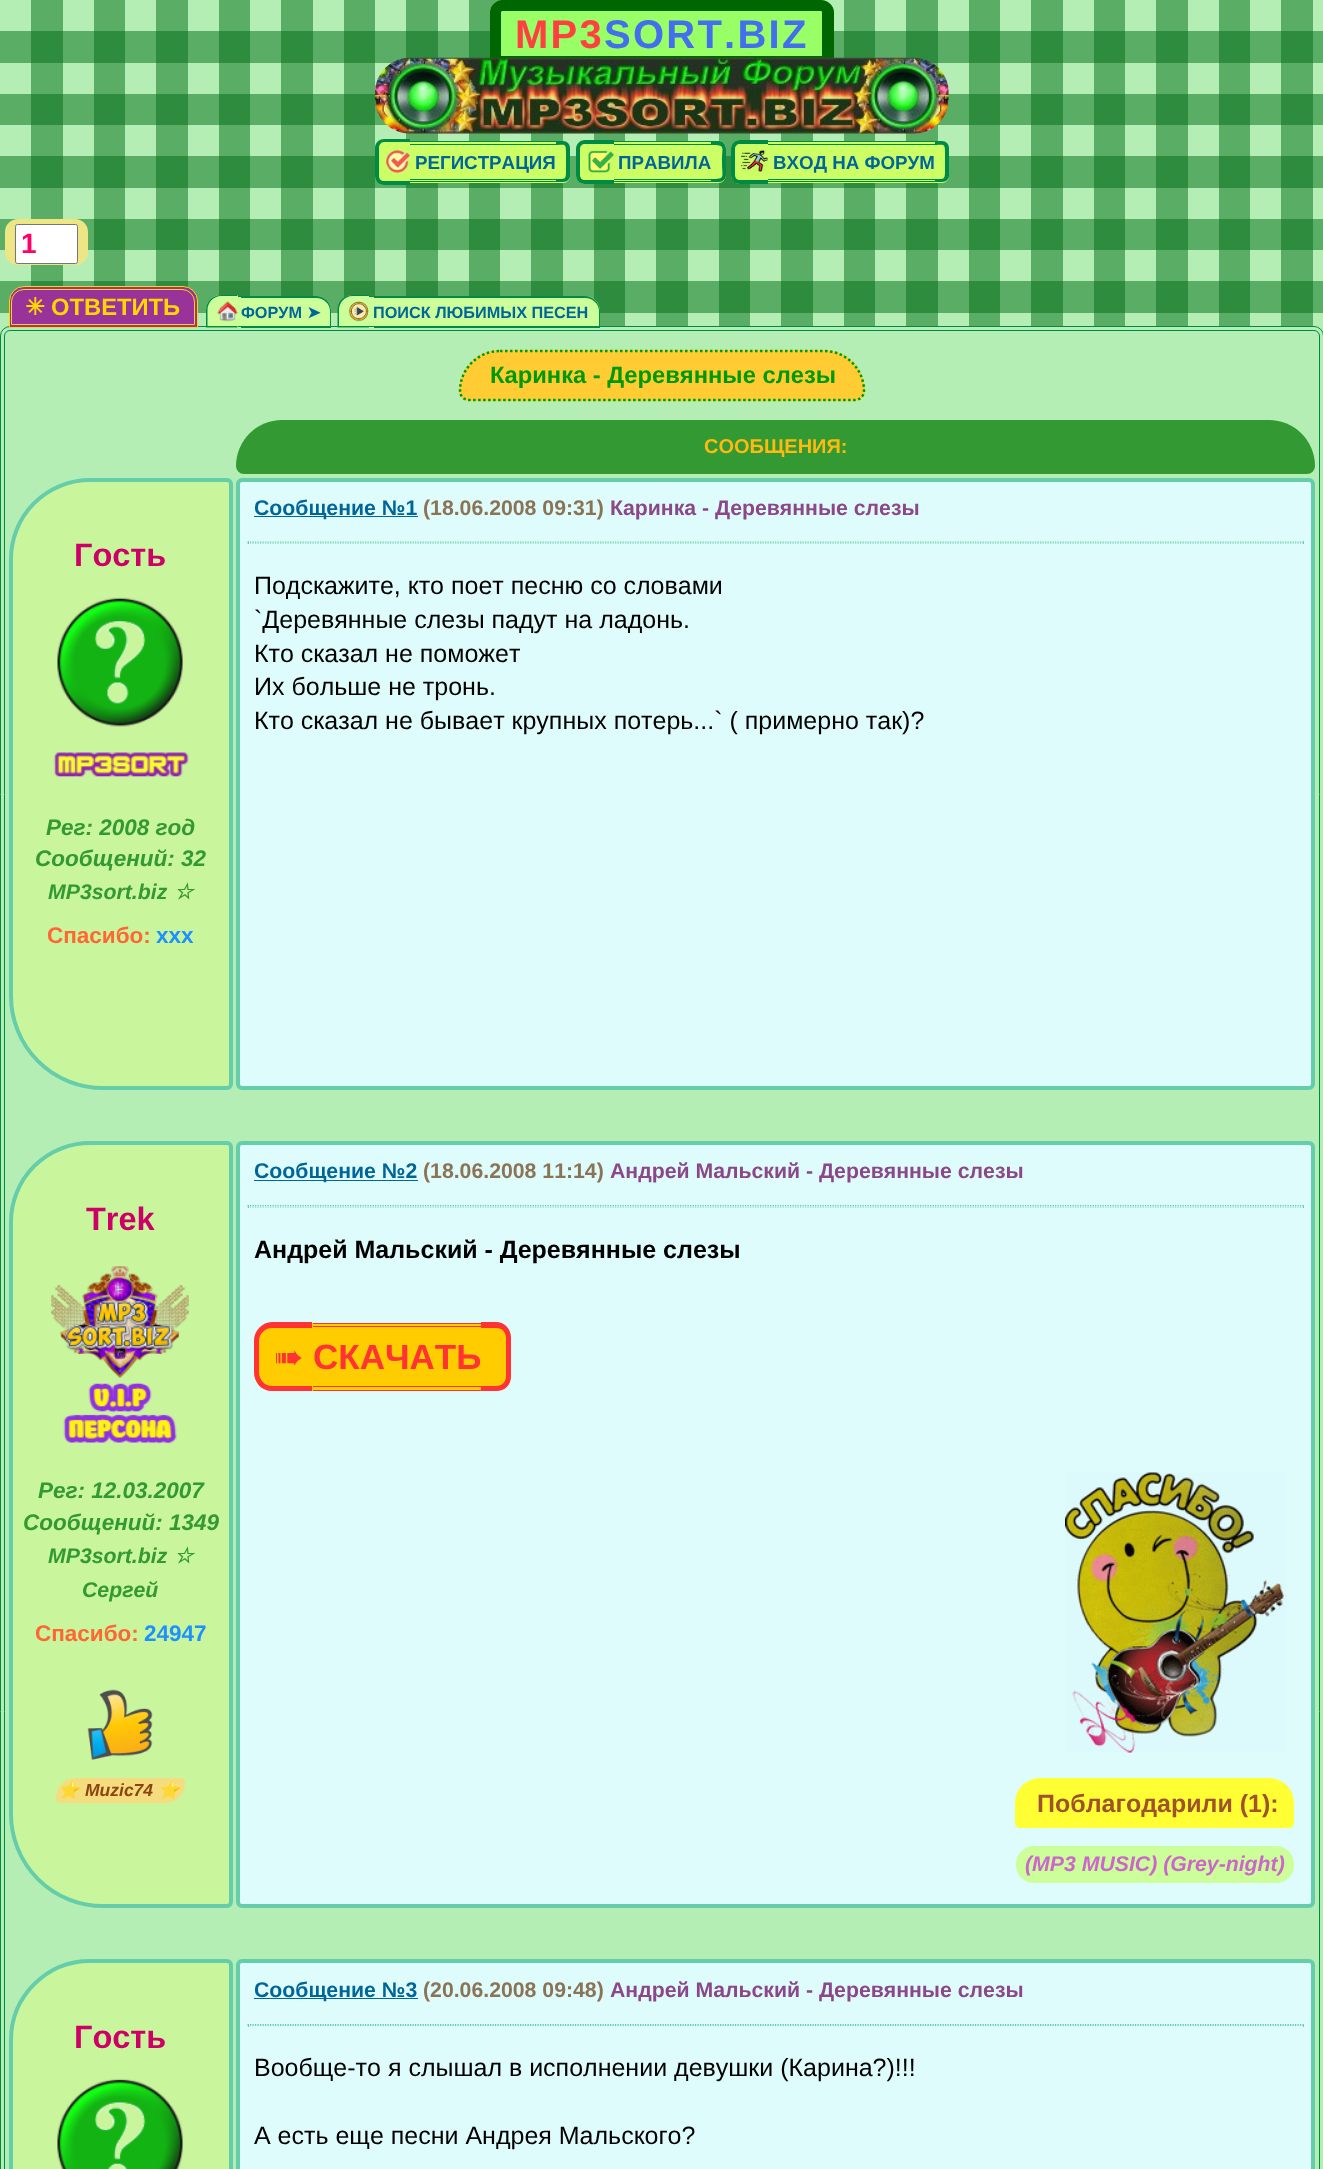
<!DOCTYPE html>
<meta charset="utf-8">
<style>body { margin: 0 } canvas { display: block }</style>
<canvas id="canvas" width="1323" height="2169"></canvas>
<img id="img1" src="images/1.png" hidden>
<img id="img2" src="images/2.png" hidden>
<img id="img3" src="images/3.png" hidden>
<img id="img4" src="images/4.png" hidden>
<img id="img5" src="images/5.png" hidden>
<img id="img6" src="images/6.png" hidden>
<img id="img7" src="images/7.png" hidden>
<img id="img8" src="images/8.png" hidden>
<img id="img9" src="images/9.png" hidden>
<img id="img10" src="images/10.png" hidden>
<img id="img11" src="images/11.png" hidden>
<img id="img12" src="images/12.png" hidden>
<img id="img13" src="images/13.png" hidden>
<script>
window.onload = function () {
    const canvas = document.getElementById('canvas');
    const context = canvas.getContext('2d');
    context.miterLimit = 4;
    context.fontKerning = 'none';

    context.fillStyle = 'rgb(180, 238, 180)';
    context.fillRect(0, 0, 1323, 2169);
    context.drawImage(document.getElementById('img1'), 31, 0, 1282, 326);
    context.drawImage(document.getElementById('img2'), 0, 31, 1323, 282);
    context.fillStyle = 'rgb(153, 255, 102)';
    context.beginPath();
    context.roundRect(490, 0, 114, 68, [13, 0, 0, 0]);
    context.fill();
    context.fillStyle = 'rgb(0, 102, 0)';
    context.beginPath();
    context.moveTo(502, 0);
    context.lineTo(604, 0);
    context.lineTo(604, 68);
    context.lineTo(490, 68);
    context.lineTo(490, 12);
    context.bezierCurveTo(490, 6, 496, 0, 502, 0);
    context.closePath();
    context.moveTo(502, 11);
    context.lineTo(604, 11);
    context.lineTo(604, 56);
    context.lineTo(501, 56);
    context.lineTo(501, 12);
    context.bezierCurveTo(501, 12, 502, 11, 502, 11);
    context.closePath();
    context.fill('evenodd');
    context.fillStyle = 'rgb(153, 255, 102)';
    context.beginPath();
    context.roundRect(604, 0, 230, 68, [0, 13, 0, 0]);
    context.fill();
    context.fillStyle = 'rgb(0, 102, 0)';
    context.beginPath();
    context.moveTo(604, 0);
    context.lineTo(821, 0);
    context.bezierCurveTo(828, 0, 834, 6, 834, 12);
    context.lineTo(834, 68);
    context.lineTo(604, 68);
    context.closePath();
    context.moveTo(604, 11);
    context.lineTo(821, 11);
    context.bezierCurveTo(822, 11, 822, 12, 822, 12);
    context.lineTo(822, 56);
    context.lineTo(604, 56);
    context.closePath();
    context.fill('evenodd');
    context.drawImage(document.getElementById('img3'), 375, 57, 574, 77);
    context.fillStyle = 'rgb(204, 255, 102)';
    context.beginPath();
    context.roundRect(375, 139, 35, 46, [9, 0, 0, 9]);
    context.fill();
    context.fillStyle = 'rgb(0, 139, 69)';
    context.beginPath();
    context.moveTo(384, 139);
    context.lineTo(410, 139);
    context.lineTo(410, 185);
    context.lineTo(384, 185);
    context.bezierCurveTo(379, 185, 375, 181, 375, 176);
    context.lineTo(375, 148);
    context.bezierCurveTo(375, 143, 379, 139, 384, 139);
    context.closePath();
    context.moveTo(384, 142);
    context.lineTo(410, 142);
    context.lineTo(410, 181);
    context.lineTo(384, 181);
    context.bezierCurveTo(381, 181, 379, 179, 379, 176);
    context.lineTo(379, 148);
    context.bezierCurveTo(379, 145, 381, 142, 384, 142);
    context.closePath();
    context.fill('evenodd');
    context.drawImage(document.getElementById('img4'), 386, 150, 24, 23);
    context.fillStyle = 'rgb(204, 255, 102)';
    context.fillRect(410, 141, 5, 42);
    context.fillStyle = 'rgb(0, 139, 69)';
    context.fillRect(410, 141, 146, 1);
    context.fillRect(410, 144, 5, 1);
    context.fillRect(410, 179, 5, 1);
    context.fillRect(410, 181, 5, 1);
    context.fillStyle = 'rgb(204, 255, 102)';
    context.fillRect(415, 142, 141, 41);
    context.fillStyle = 'rgb(0, 139, 69)';
    context.fillRect(415, 144, 141, 1);
    context.fillRect(415, 179, 141, 1);
    context.fillRect(415, 181, 141, 1);
    context.fillStyle = 'rgb(204, 255, 102)';
    context.beginPath();
    context.roundRect(556, 141, 14, 42, [0, 7, 7, 0]);
    context.fill();
    context.fillStyle = 'rgb(0, 139, 69)';
    context.beginPath();
    context.moveTo(556, 141);
    context.lineTo(563, 141);
    context.bezierCurveTo(567, 141, 570, 144, 570, 148);
    context.lineTo(570, 176);
    context.bezierCurveTo(570, 179, 567, 182, 563, 182);
    context.lineTo(556, 182);
    context.closePath();
    context.moveTo(556, 145);
    context.bezierCurveTo(565, 145, 566, 143, 566, 153);
    context.lineTo(566, 171);
    context.bezierCurveTo(566, 180, 565, 179, 556, 179);
    context.closePath();
    context.fill('evenodd');
    context.fillStyle = 'rgb(204, 255, 102)';
    context.beginPath();
    context.roundRect(576, 140, 38, 44, [9, 0, 0, 9]);
    context.fill();
    context.fillStyle = 'rgb(0, 139, 69)';
    context.beginPath();
    context.moveTo(585, 140);
    context.lineTo(614, 140);
    context.lineTo(614, 184);
    context.lineTo(585, 184);
    context.bezierCurveTo(580, 184, 576, 180, 576, 175);
    context.lineTo(576, 149);
    context.bezierCurveTo(576, 144, 580, 140, 585, 140);
    context.closePath();
    context.moveTo(585, 144);
    context.lineTo(614, 144);
    context.lineTo(614, 180);
    context.lineTo(585, 180);
    context.bezierCurveTo(582, 180, 580, 178, 580, 175);
    context.lineTo(580, 149);
    context.bezierCurveTo(580, 146, 582, 144, 585, 144);
    context.closePath();
    context.fill('evenodd');
    context.drawImage(document.getElementById('img5'), 587, 150, 27, 23);
    context.fillStyle = 'rgb(204, 255, 102)';
    context.fillRect(614, 141, 5, 42);
    context.fillStyle = 'rgb(0, 139, 69)';
    context.fillRect(614, 141, 97, 1);
    context.fillRect(614, 144, 5, 1);
    context.fillRect(614, 179, 5, 1);
    context.fillRect(614, 181, 5, 1);
    context.fillStyle = 'rgb(204, 255, 102)';
    context.fillRect(619, 142, 92, 41);
    context.fillStyle = 'rgb(0, 139, 69)';
    context.fillRect(619, 144, 92, 1);
    context.fillRect(619, 179, 92, 1);
    context.fillRect(619, 181, 92, 1);
    context.fillStyle = 'rgb(204, 255, 102)';
    context.beginPath();
    context.roundRect(711, 141, 15, 42, [0, 7.5, 7.5, 0]);
    context.fill();
    context.fillStyle = 'rgb(0, 139, 69)';
    context.beginPath();
    context.moveTo(711, 141);
    context.lineTo(719, 141);
    context.bezierCurveTo(723, 141, 726, 145, 726, 149);
    context.lineTo(726, 175);
    context.bezierCurveTo(726, 179, 723, 182, 719, 182);
    context.lineTo(711, 182);
    context.closePath();
    context.moveTo(711, 145);
    context.bezierCurveTo(726, 145, 722, 146, 722, 162);
    context.bezierCurveTo(722, 178, 726, 179, 711, 179);
    context.closePath();
    context.fill('evenodd');
    context.fillStyle = 'rgb(204, 255, 102)';
    context.beginPath();
    context.roundRect(731, 140, 37, 44, [9, 0, 0, 9]);
    context.fill();
    context.fillStyle = 'rgb(0, 139, 69)';
    context.beginPath();
    context.moveTo(740, 140);
    context.lineTo(768, 140);
    context.lineTo(768, 184);
    context.lineTo(740, 184);
    context.bezierCurveTo(735, 184, 731, 180, 731, 175);
    context.lineTo(731, 149);
    context.bezierCurveTo(731, 144, 735, 140, 740, 140);
    context.closePath();
    context.moveTo(740, 144);
    context.lineTo(768, 144);
    context.lineTo(768, 180);
    context.lineTo(740, 180);
    context.bezierCurveTo(737, 180, 735, 178, 735, 175);
    context.lineTo(735, 149);
    context.bezierCurveTo(735, 146, 737, 144, 740, 144);
    context.closePath();
    context.fill('evenodd');
    context.drawImage(document.getElementById('img6'), 741, 150, 27, 22);
    context.fillStyle = 'rgb(204, 255, 102)';
    context.fillRect(768, 141, 5, 42);
    context.fillStyle = 'rgb(0, 139, 69)';
    context.fillRect(768, 141, 167, 1);
    context.fillRect(768, 144, 5, 1);
    context.fillRect(768, 179, 5, 1);
    context.fillRect(768, 181, 5, 1);
    context.fillStyle = 'rgb(204, 255, 102)';
    context.fillRect(773, 142, 162, 41);
    context.fillStyle = 'rgb(0, 139, 69)';
    context.fillRect(773, 144, 162, 1);
    context.fillRect(773, 179, 162, 1);
    context.fillRect(773, 181, 162, 1);
    context.fillStyle = 'rgb(204, 255, 102)';
    context.beginPath();
    context.roundRect(935, 141, 14, 42, [0, 7, 7, 0]);
    context.fill();
    context.fillStyle = 'rgb(0, 139, 69)';
    context.beginPath();
    context.moveTo(935, 141);
    context.lineTo(942, 141);
    context.bezierCurveTo(946, 141, 949, 144, 949, 148);
    context.lineTo(949, 176);
    context.bezierCurveTo(949, 179, 946, 182, 942, 182);
    context.lineTo(935, 182);
    context.closePath();
    context.moveTo(935, 145);
    context.bezierCurveTo(944, 145, 945, 143, 945, 153);
    context.lineTo(945, 171);
    context.bezierCurveTo(945, 180, 944, 179, 935, 179);
    context.closePath();
    context.fill('evenodd');
    context.fillStyle = 'rgb(238, 230, 133)';
    context.beginPath();
    context.roundRect(5, 219, 83, 46, 13);
    context.fill();
    context.fillStyle = 'rgb(255, 255, 255)';
    context.beginPath();
    context.roundRect(15.5, 224.5, 62, 39, 2);
    context.fill();
    context.strokeStyle = 'rgb(118, 118, 118)';
    context.stroke();
    context.beginPath();
    context.roundRect(0.5, 326.5, 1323, 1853, 9.5);
    context.strokeStyle = 'rgb(0, 139, 69)';
    context.stroke();
    context.fillStyle = 'rgb(153, 51, 153)';
    context.beginPath();
    context.roundRect(9.5, 286.5, 188, 41, [14.5, 14.5, 0, 0]);
    context.fill();
    context.strokeStyle = 'rgb(255, 215, 0)';
    context.stroke();
    context.beginPath();
    context.roundRect(11.5, 289.5, 183, 35, [12.5, 12.5, 0, 0]);
    context.stroke();
    context.fillStyle = 'rgb(204, 255, 153)';
    context.beginPath();
    context.roundRect(206, 295, 32, 33, [15, 0, 0, 0]);
    context.fill();
    context.fillStyle = 'rgb(0, 139, 69)';
    context.beginPath();
    context.moveTo(221, 295);
    context.lineTo(237.5, 295);
    context.lineTo(237.5, 327.5);
    context.lineTo(206, 327.5);
    context.lineTo(206, 310);
    context.bezierCurveTo(206, 301.5, 213, 295, 221, 295);
    context.closePath();
    context.moveTo(221, 296);
    context.lineTo(237.5, 296);
    context.lineTo(237.5, 326);
    context.lineTo(207.5, 326);
    context.lineTo(207.5, 310);
    context.bezierCurveTo(207.5, 302.5, 213.5, 296, 221, 296);
    context.closePath();
    context.fill('evenodd');
    context.drawImage(document.getElementById('img7'), 217, 301, 21, 21);
    context.fillStyle = 'rgb(204, 255, 153)';
    context.fillRect(238, 296, 3, 32);
    context.fillStyle = 'rgb(0, 139, 69)';
    context.fillRect(238, 296, 4, 1);
    context.fillRect(238, 326, 4, 1);
    context.fillStyle = 'rgb(204, 255, 153)';
    context.beginPath();
    context.roundRect(241, 296, 90, 32, [0, 15, 0, 0]);
    context.fill();
    context.fillStyle = 'rgb(0, 139, 69)';
    context.beginPath();
    context.moveTo(241, 296);
    context.lineTo(316, 296);
    context.bezierCurveTo(325, 296, 331, 303, 331, 311);
    context.lineTo(331, 328);
    context.lineTo(241, 328);
    context.closePath();
    context.moveTo(241, 298);
    context.lineTo(316, 298);
    context.bezierCurveTo(324, 298, 330, 304, 330, 311);
    context.lineTo(330, 326);
    context.lineTo(241, 326);
    context.closePath();
    context.fill('evenodd');
    context.fillStyle = 'rgb(204, 255, 153)';
    context.beginPath();
    context.roundRect(338, 295, 31, 33, [15, 0, 0, 0]);
    context.fill();
    context.fillStyle = 'rgb(0, 139, 69)';
    context.beginPath();
    context.moveTo(352.5, 295);
    context.lineTo(369, 295);
    context.lineTo(369, 327.5);
    context.lineTo(337.5, 327.5);
    context.lineTo(337.5, 310);
    context.bezierCurveTo(337.5, 301.5, 344, 295, 352.5, 295);
    context.closePath();
    context.moveTo(352.5, 296);
    context.lineTo(369, 296);
    context.lineTo(369, 326);
    context.lineTo(339, 326);
    context.lineTo(339, 310);
    context.bezierCurveTo(339, 302.5, 345, 296, 352.5, 296);
    context.closePath();
    context.fill('evenodd');
    context.drawImage(document.getElementById('img8'), 348, 301, 21, 21);
    context.fillStyle = 'rgb(204, 255, 153)';
    context.fillRect(369, 296, 5, 32);
    context.fillStyle = 'rgb(0, 139, 69)';
    context.fillRect(369, 296, 5, 1);
    context.fillRect(369, 326, 5, 1);
    context.fillStyle = 'rgb(204, 255, 153)';
    context.beginPath();
    context.roundRect(374, 296, 226, 32, [0, 15, 0, 0]);
    context.fill();
    context.fillStyle = 'rgb(0, 139, 69)';
    context.beginPath();
    context.moveTo(374, 296);
    context.lineTo(585, 296);
    context.bezierCurveTo(593, 296, 600, 303, 600, 311);
    context.lineTo(600, 328);
    context.lineTo(374, 328);
    context.closePath();
    context.moveTo(374, 298);
    context.lineTo(585, 298);
    context.bezierCurveTo(593, 298, 599, 304, 599, 311);
    context.lineTo(599, 326);
    context.lineTo(374, 326);
    context.closePath();
    context.fill('evenodd');
    context.beginPath();
    context.roundRect(4.5, 330.5, 1315, 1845, 5.5);
    context.strokeStyle = 'rgb(0, 139, 69)';
    context.stroke();
    context.fillStyle = 'rgb(255, 204, 51)';
    context.beginPath();
    context.roundRect(459, 350, 406, 51, [41, 41, 10, 10]);
    context.fill();
    context.beginPath();
    context.moveTo(500, 351);
    context.lineTo(824, 351);
    context.bezierCurveTo(846, 351, 864, 369, 864, 391);
    context.bezierCurveTo(864, 396, 859.5, 400, 855, 400);
    context.lineTo(469, 400);
    context.bezierCurveTo(464, 400, 460, 396, 460, 391);
    context.bezierCurveTo(460, 369, 478, 351, 500, 351);
    context.closePath();
    context.strokeStyle = 'rgb(0, 153, 0)';
    context.lineWidth = 2.5;
    context.setLineDash([2.5, 2.5]);
    context.stroke();
    context.fillStyle = 'rgb(51, 153, 51)';
    context.beginPath();
    context.roundRect(236, 420, 1079, 54, [46, 46, 8, 8]);
    context.fill();
    context.fillStyle = 'rgb(201, 245, 157)';
    context.beginPath();
    context.roundRect(11, 480, 220, 608, [79, 4, 4, 92]);
    context.fill();
    context.strokeStyle = 'rgb(102, 205, 170)';
    context.lineWidth = 4;
    context.setLineDash([]);
    context.stroke();
    context.drawImage(document.getElementById('img9'), 53, 597, 136, 180);
    context.fillStyle = 'rgb(222, 252, 252)';
    context.beginPath();
    context.roundRect(238, 480, 1075, 608, 4);
    context.fill();
    context.stroke();
    context.fillStyle = 'rgb(0, 102, 153)';
    context.fillRect(254, 516, 164, 1);
    context.beginPath();
    context.moveTo(247.5, 542);
    context.lineTo(1304, 542);
    context.lineWidth = 1.2;
    context.setLineDash([1.25, 1.25]);
    context.stroke();
    context.fillStyle = 'rgb(102, 205, 170)';
    context.fillRect(1303, 541, 1, 3);
    context.beginPath();
    context.moveTo(247.5, 543);
    context.lineTo(1304, 543);
    context.stroke();
    context.fillRect(248, 541, 1, 3);
    context.fillStyle = 'rgb(201, 245, 157)';
    context.beginPath();
    context.roundRect(11, 1143, 220, 763, [79, 4, 4, 92]);
    context.fill();
    context.lineWidth = 4;
    context.setLineDash([]);
    context.stroke();
    context.drawImage(document.getElementById('img10'), 51, 1266, 138, 178);
    context.drawImage(document.getElementById('img11'), 87, 1689, 66, 72);
    context.fillStyle = 'rgb(245, 221, 127)';
    context.beginPath();
    context.roundRect(56, 1778, 29, 25, [20, 0, 0, 5]);
    context.fill();
    context.fillRect(85, 1778, 68, 25);
    context.beginPath();
    context.roundRect(153, 1778, 32, 25, [0, 5, 20, 0]);
    context.fill();
    context.fillStyle = 'rgb(222, 252, 252)';
    context.beginPath();
    context.roundRect(238, 1143, 1075, 763, 4);
    context.fill();
    context.stroke();
    context.fillStyle = 'rgb(0, 102, 153)';
    context.fillRect(254, 1180, 164, 1);
    context.beginPath();
    context.moveTo(247.5, 1205.5);
    context.lineTo(1304, 1205.5);
    context.lineWidth = 1.2;
    context.setLineDash([1.25, 1.25]);
    context.stroke();
    context.fillStyle = 'rgb(102, 205, 170)';
    context.fillRect(1303, 1205, 1, 3);
    context.beginPath();
    context.moveTo(247.5, 1207);
    context.lineTo(1304, 1207);
    context.stroke();
    context.fillRect(248, 1205, 1, 3);
    context.fillStyle = 'rgb(255, 204, 0)';
    context.beginPath();
    context.roundRect(254, 1323, 59, 68, [19, 0, 0, 19]);
    context.fill();
    context.fillStyle = 'rgb(255, 51, 51)';
    context.beginPath();
    context.moveTo(272, 1322);
    context.lineTo(312, 1322);
    context.lineTo(312, 1391);
    context.lineTo(272, 1391);
    context.bezierCurveTo(262, 1391, 254, 1383, 254, 1372);
    context.lineTo(254, 1341);
    context.bezierCurveTo(254, 1331, 262, 1322, 272, 1322);
    context.closePath();
    context.moveTo(272, 1328);
    context.lineTo(312, 1328);
    context.lineTo(312, 1386);
    context.lineTo(272, 1386);
    context.bezierCurveTo(265, 1386, 259, 1380, 259, 1372);
    context.lineTo(259, 1341);
    context.bezierCurveTo(259, 1334, 265, 1328, 272, 1328);
    context.closePath();
    context.fill('evenodd');
    context.fillStyle = 'rgb(255, 204, 0)';
    context.fillRect(313, 1324, 168, 66);
    context.fillStyle = 'rgb(255, 51, 51)';
    context.fillRect(313, 1323, 168, 1);
    context.fillRect(313, 1326, 168, 1);
    context.fillRect(313, 1386, 168, 1);
    context.fillRect(313, 1390, 168, 1);
    context.fillStyle = 'rgb(255, 204, 0)';
    context.beginPath();
    context.roundRect(481, 1323, 30, 68, [0, 15, 15, 0]);
    context.fill();
    context.fillStyle = 'rgb(255, 51, 51)';
    context.beginPath();
    context.moveTo(481, 1322);
    context.lineTo(496, 1322);
    context.bezierCurveTo(505, 1322, 511, 1329, 511, 1338);
    context.lineTo(511, 1376);
    context.bezierCurveTo(511, 1385, 505, 1391, 496, 1391);
    context.lineTo(481, 1391);
    context.closePath();
    context.moveTo(481, 1328);
    context.lineTo(496, 1328);
    context.bezierCurveTo(502, 1328, 506, 1332, 506, 1338);
    context.lineTo(506, 1376);
    context.bezierCurveTo(506, 1382, 502, 1386, 496, 1386);
    context.lineTo(481, 1386);
    context.closePath();
    context.fill('evenodd');
    context.drawImage(document.getElementById('img12'), 1065, 1472, 222, 281);
    context.fillStyle = 'rgb(255, 255, 51)';
    context.beginPath();
    context.roundRect(1015, 1778, 279, 50, [25, 25, 5, 5]);
    context.fill();
    context.fillStyle = 'rgb(204, 255, 153)';
    context.beginPath();
    context.roundRect(1016, 1846, 278, 37, 18);
    context.fill();
    context.fillStyle = 'rgb(201, 245, 157)';
    context.beginPath();
    context.moveTo(90, 1961);
    context.lineTo(227, 1961);
    context.bezierCurveTo(229, 1961, 231, 1963, 231, 1965);
    context.lineTo(231, 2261);
    context.bezierCurveTo(231, 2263, 229, 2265, 227, 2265);
    context.lineTo(103, 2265);
    context.bezierCurveTo(52, 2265, 11, 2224, 11, 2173);
    context.lineTo(11, 2040);
    context.bezierCurveTo(11, 1996.5, 46.5, 1961, 90, 1961);
    context.closePath();
    context.fill();
    context.lineWidth = 4;
    context.setLineDash([]);
    context.stroke();
    context.drawImage(document.getElementById('img13'), 57, 2078, 126, 91);
    context.fillStyle = 'rgb(222, 252, 252)';
    context.beginPath();
    context.roundRect(238, 1961, 1075, 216, 4);
    context.fill();
    context.stroke();
    context.fillStyle = 'rgb(0, 102, 153)';
    context.fillRect(254, 1998, 164, 1);
    context.beginPath();
    context.moveTo(247.5, 2024.5);
    context.lineTo(1304, 2024.5);
    context.lineWidth = 1.2;
    context.setLineDash([1.25, 1.25]);
    context.stroke();
    context.fillStyle = 'rgb(102, 205, 170)';
    context.fillRect(1303, 2024, 1, 3);
    context.beginPath();
    context.moveTo(247.5, 2025.5);
    context.lineTo(1304, 2025.5);
    context.stroke();
    context.fillRect(248, 2024, 1, 3);
    context.letterSpacing = '2.25px';
    context.font = 'bold 40px Liberation Sans';
    context.fillStyle = 'rgb(255, 64, 64)';
    context.fillText('MP3', 515, 48);
    context.fillStyle = 'rgb(67, 110, 238)';
    context.fillText('SORT.BIZ', 604, 48);
    context.letterSpacing = '0px';
    context.font = 'bold 18.75px Liberation Sans';
    context.fillStyle = 'rgb(0, 102, 153)';
    context.fillText('РЕГИСТРАЦИЯ', 415, 169);
    context.fillText('ПРАВИЛА', 618, 169);
    context.fillText('ВХОД НА ФОРУМ', 773, 169);
    context.font = 'bold 28px Liberation Sans';
    context.fillStyle = 'rgb(255, 0, 102)';
    context.fillText('1', 21, 253);
    context.font = 'bold 23.75px DejaVu Sans';
    context.fillStyle = 'rgb(255, 215, 0)';
    context.fillText('✳', 25, 315);
    context.font = 'bold 23.75px Liberation Sans';
    context.fillText('ОТВЕТИТЬ', 51, 315);
    context.font = 'bold 16.25px Liberation Sans';
    context.fillStyle = 'rgb(0, 102, 153)';
    context.fillText('ФОРУМ', 241, 318);
    context.font = 'bold 16.25px DejaVu Sans';
    context.fillText('➤', 307, 318);
    context.font = 'bold 16.25px Liberation Sans';
    context.fillText('ПОИСК ЛЮБИМЫХ ПЕСЕН', 373, 318);
    context.font = 'bold 23.75px Liberation Sans';
    context.fillStyle = 'rgb(0, 153, 0)';
    context.fillText('Каринка - Деревянные слезы', 490, 383);
    context.font = 'bold 20px Liberation Sans';
    context.fillStyle = 'rgb(255, 185, 15)';
    context.fillText('СООБЩЕНИЯ:', 704, 453);
    context.font = 'bold 32.5px Liberation Sans';
    context.fillStyle = 'rgb(204, 0, 102)';
    context.fillText('Гость', 74, 566);
    context.font = 'italic bold 22.5px Liberation Sans';
    context.fillStyle = 'rgb(51, 153, 51)';
    context.fillText('Рег: 2008 год', 46, 835);
    context.fillText('Сообщений: 32', 35, 866);
    context.font = 'italic bold 21.25px Liberation Sans';
    context.fillText('MP3sort.biz', 48, 899);
    context.font = 'italic bold 21.25px DejaVu Sans';
    context.fillText('☆', 174, 899);
    context.font = 'bold 22.5px Liberation Sans';
    context.fillStyle = 'rgb(255, 102, 51)';
    context.fillText('Спасибо:', 47, 943);
    context.fillStyle = 'rgb(30, 144, 255)';
    context.fillText('xxx', 156, 943);
    context.font = 'bold 21.25px Liberation Sans';
    context.fillStyle = 'rgb(0, 102, 153)';
    context.fillText('Сообщение №1', 254, 515);
    context.fillStyle = 'rgb(139, 115, 85)';
    context.fillText('(18.06.2008 09:31)', 423, 515);
    context.fillStyle = 'rgb(139, 71, 137)';
    context.fillText('Каринка - Деревянные слезы', 610, 515);
    context.font = '25px Liberation Sans';
    context.fillStyle = 'rgb(0, 0, 0)';
    context.fillText('Подскажите, кто поет песню со словами', 254, 594);
    context.fillText('`Деревянные слезы падут на ладонь.', 254, 628);
    context.fillText('Кто сказал не поможет', 254, 662);
    context.fillText('Их больше не тронь.', 254, 695);
    context.fillText('Кто сказал не бывает крупных потерь...` ( примерно так)?', 254, 729);
    context.font = 'bold 32.5px Liberation Sans';
    context.fillStyle = 'rgb(204, 0, 102)';
    context.fillText('Trek', 86, 1230);
    context.font = 'italic bold 22.5px Liberation Sans';
    context.fillStyle = 'rgb(51, 153, 51)';
    context.fillText('Рег: 12.03.2007', 38, 1498);
    context.fillText('Сообщений: 1349', 23, 1530);
    context.font = 'italic bold 21.25px Liberation Sans';
    context.fillText('MP3sort.biz', 48, 1563);
    context.font = 'italic bold 21.25px DejaVu Sans';
    context.fillText('☆', 174, 1563);
    context.font = 'italic bold 21.25px Liberation Sans';
    context.fillText('Сергей', 82, 1597);
    context.font = 'bold 22.5px Liberation Sans';
    context.fillStyle = 'rgb(255, 102, 51)';
    context.fillText('Спасибо:', 35, 1641);
    context.fillStyle = 'rgb(30, 144, 255)';
    context.fillText('24947', 144, 1641);
    context.font = 'italic 17.5px Noto Color Emoji';
    context.fillStyle = 'rgb(139, 69, 19)';
    context.fillText('⭐', 58, 1796);
    context.font = 'italic bold 17.5px Liberation Sans';
    context.fillText('Muzic74', 85, 1796);
    context.font = 'italic 17.5px Noto Color Emoji';
    context.fillText('⭐', 158, 1796);
    context.font = 'bold 21.25px Liberation Sans';
    context.fillStyle = 'rgb(0, 102, 153)';
    context.fillText('Сообщение №2', 254, 1178);
    context.fillStyle = 'rgb(139, 115, 85)';
    context.fillText('(18.06.2008 11:14)', 423, 1178);
    context.fillStyle = 'rgb(139, 71, 137)';
    context.fillText('Андрей Мальский - Деревянные слезы', 610, 1178);
    context.font = 'bold 25px Liberation Sans';
    context.fillStyle = 'rgb(0, 0, 0)';
    context.fillText('Андрей Мальский - Деревянные слезы', 254, 1258);
    context.font = '35px DejaVu Sans';
    context.fillStyle = 'rgb(255, 51, 51)';
    context.fillText('➠', 274, 1369);
    context.font = 'bold 35px Liberation Sans';
    context.fillText('СКАЧАТЬ', 313, 1369);
    context.font = 'bold 25px Liberation Sans';
    context.fillStyle = 'rgb(160, 82, 45)';
    context.fillText('Поблагодарили (1):', 1037, 1812);
    context.font = 'italic bold 21.25px Liberation Sans';
    context.fillStyle = 'rgb(204, 102, 204)';
    context.fillText('(MP3 MUSIC) (Grey-night)', 1025, 1871);
    context.font = 'bold 32.5px Liberation Sans';
    context.fillStyle = 'rgb(204, 0, 102)';
    context.fillText('Гость', 74, 2048);
    context.font = 'bold 21.25px Liberation Sans';
    context.fillStyle = 'rgb(0, 102, 153)';
    context.fillText('Сообщение №3', 254, 1997);
    context.fillStyle = 'rgb(139, 115, 85)';
    context.fillText('(20.06.2008 09:48)', 423, 1997);
    context.fillStyle = 'rgb(139, 71, 137)';
    context.fillText('Андрей Мальский - Деревянные слезы', 610, 1997);
    context.font = '25px Liberation Sans';
    context.fillStyle = 'rgb(0, 0, 0)';
    context.fillText('Вообще-то я слышал в исполнении девушки (Карина?)!!!', 254, 2076);
    context.fillText('А есть еще песни Андрея Мальского?', 254, 2144);
};
</script>
